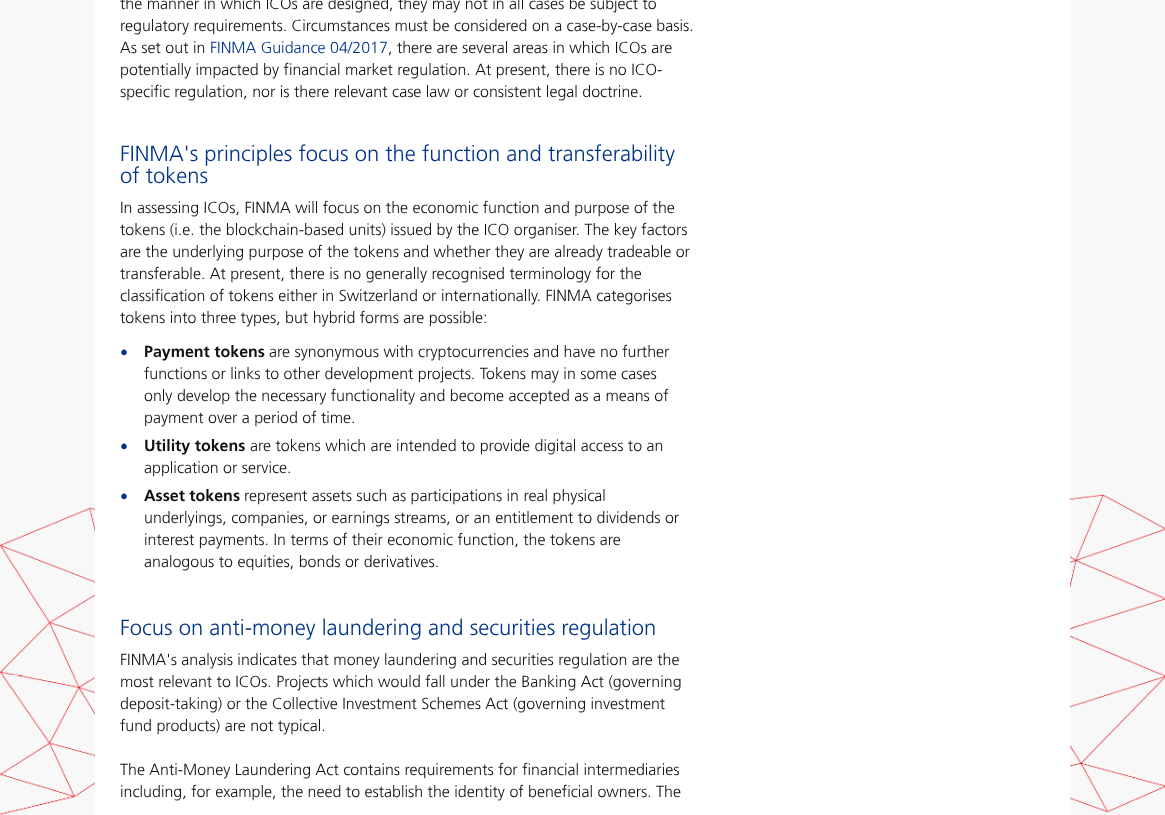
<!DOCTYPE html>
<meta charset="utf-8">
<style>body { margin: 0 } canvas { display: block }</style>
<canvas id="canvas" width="1165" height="815"></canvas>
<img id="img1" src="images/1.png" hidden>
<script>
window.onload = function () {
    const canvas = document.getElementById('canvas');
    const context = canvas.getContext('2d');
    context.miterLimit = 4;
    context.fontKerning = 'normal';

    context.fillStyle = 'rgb(248, 248, 248)';
    context.fillRect(0, 0, 1165, 815);
    context.drawImage(document.getElementById('img1'), 0, 440, 1165, 375);
    context.fillStyle = 'rgb(255, 255, 255)';
    context.fillRect(95, 0, 975, 815);
    context.font = '300 16px "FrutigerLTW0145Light"';
    context.fillStyle = 'rgb(17, 17, 17)';
    context.fillText('the manner in which ICOs are designed, they may not in all cases be subject to', 120, 9);
    context.fillText('regulatory requirements. Circumstances must be considered on a case-by-case basis.', 120, 31);
    context.fillText('As set out in', 120, 53);
    context.fillStyle = 'rgb(0, 51, 136)';
    context.fillText('FINMA Guidance 04/2017', 210, 53);
    context.fillStyle = 'rgb(17, 17, 17)';
    context.fillText(', there are several areas in which ICOs are', 388, 53);
    context.fillText('potentially impacted by financial market regulation. At present, there is no ICO-', 120, 75);
    context.fillText('specific regulation, nor is there relevant case law or consistent legal doctrine.', 120, 97);
    context.font = '300 22px "FrutigerLTW0145Light"';
    context.fillStyle = 'rgb(0, 51, 136)';
    context.fillText('FINMA\'s principles focus on the function and transferability', 120, 161);
    context.fillText('of tokens', 120, 183);
    context.font = '300 16px "FrutigerLTW0145Light"';
    context.fillStyle = 'rgb(17, 17, 17)';
    context.fillText('In assessing ICOs, FINMA will focus on the economic function and purpose of the', 120, 213);
    context.fillText('tokens (i.e. the blockchain-based units) issued by the ICO organiser. The key factors', 120, 235);
    context.fillText('are the underlying purpose of the tokens and whether they are already tradeable or', 120, 257);
    context.fillText('transferable. At present, there is no generally recognised terminology for the', 120, 279);
    context.fillText('classification of tokens either in Switzerland or internationally. FINMA categorises', 120, 301);
    context.fillText('tokens into three types, but hybrid forms are possible:', 120, 323);
    context.fillStyle = 'rgb(0, 51, 136)';
    context.fillText('•', 120, 358);
    context.font = 'bold 16px "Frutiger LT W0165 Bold"';
    context.fillStyle = 'rgb(17, 17, 17)';
    context.fillText('Payment tokens', 144, 357);
    context.font = '300 16px "FrutigerLTW0145Light"';
    context.fillText('are synonymous with cryptocurrencies and have no further', 269, 357);
    context.fillText('functions or links to other development projects. Tokens may in some cases', 144, 379);
    context.fillText('only develop the necessary functionality and become accepted as a means of', 144, 401);
    context.fillText('payment over a period of time.', 144, 423);
    context.fillStyle = 'rgb(0, 51, 136)';
    context.fillText('•', 120, 452);
    context.font = 'bold 16px "Frutiger LT W0165 Bold"';
    context.fillStyle = 'rgb(17, 17, 17)';
    context.fillText('Utility tokens', 144, 451);
    context.font = '300 16px "FrutigerLTW0145Light"';
    context.fillText('are tokens which are intended to provide digital access to an', 250, 451);
    context.fillText('application or service.', 144, 473);
    context.fillStyle = 'rgb(0, 51, 136)';
    context.fillText('•', 120, 502);
    context.font = 'bold 16px "Frutiger LT W0165 Bold"';
    context.fillStyle = 'rgb(17, 17, 17)';
    context.fillText('Asset tokens', 144, 501);
    context.font = '300 16px "FrutigerLTW0145Light"';
    context.fillText('represent assets such as participations in real physical', 244, 501);
    context.fillText('underlyings, companies, or earnings streams, or an entitlement to dividends or', 144, 523);
    context.fillText('interest payments. In terms of their economic function, the tokens are', 144, 545);
    context.fillText('analogous to equities, bonds or derivatives.', 144, 567);
    context.font = '300 22px "FrutigerLTW0145Light"';
    context.fillStyle = 'rgb(0, 51, 136)';
    context.fillText('Focus on anti-money laundering and securities regulation', 120, 635);
    context.font = '300 16px "FrutigerLTW0145Light"';
    context.fillStyle = 'rgb(17, 17, 17)';
    context.fillText('FINMA\'s analysis indicates that money laundering and securities regulation are the', 120, 665);
    context.fillText('most relevant to ICOs. Projects which would fall under the Banking Act (governing', 120, 687);
    context.fillText('deposit-taking) or the Collective Investment Schemes Act (governing investment', 120, 709);
    context.fillText('fund products) are not typical.', 120, 731);
    context.fillText('The Anti-Money Laundering Act contains requirements for financial intermediaries', 120, 775);
    context.fillText('including, for example, the need to establish the identity of beneficial owners. The', 120, 797);
};
</script>
